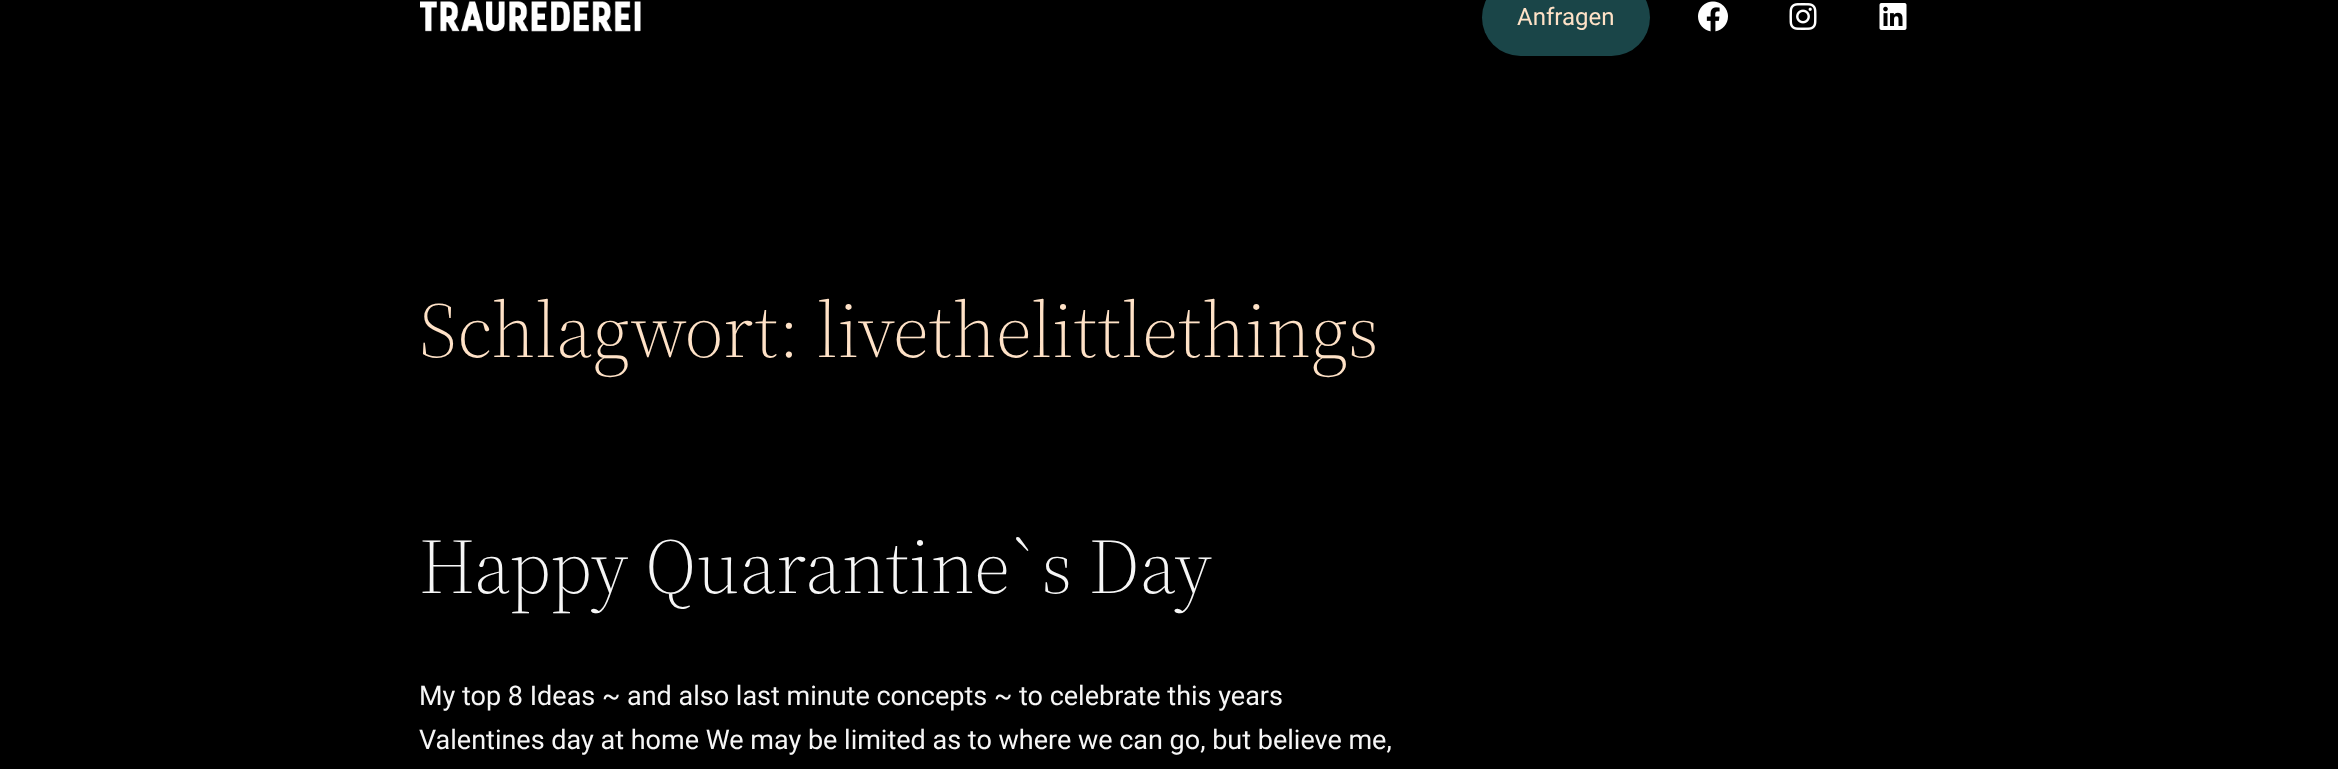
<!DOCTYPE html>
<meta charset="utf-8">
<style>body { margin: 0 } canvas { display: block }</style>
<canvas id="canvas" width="2338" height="769"></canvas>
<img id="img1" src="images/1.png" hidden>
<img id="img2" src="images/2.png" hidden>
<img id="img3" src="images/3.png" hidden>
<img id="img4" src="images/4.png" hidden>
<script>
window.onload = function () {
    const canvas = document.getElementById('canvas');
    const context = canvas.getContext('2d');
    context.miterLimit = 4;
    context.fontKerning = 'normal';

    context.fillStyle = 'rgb(0, 0, 0)';
    context.fillRect(0, 0, 2338, 769);
    context.drawImage(document.getElementById('img1'), 420, 1, 221, 31);
    context.fillStyle = 'rgb(26, 69, 72)';
    context.beginPath();
    context.roundRect(1482, -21, 168, 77, 38.5);
    context.fill();
    context.drawImage(document.getElementById('img2'), 1698, 1, 30, 31);
    context.drawImage(document.getElementById('img3'), 1789, 3, 28, 27);
    context.drawImage(document.getElementById('img4'), 1879, 3, 28, 27);
    context.font = '24px Roboto';
    context.fillStyle = 'rgb(255, 226, 199)';
    context.fillText('Anfragen', 1517, 25);
    context.font = '300 78px "Source Serif 4"';
    context.fillText('Schlagwort: livethelittlethings', 419, 357);
    context.fillStyle = 'rgb(246, 246, 246)';
    context.fillText('Happy Quarantine`s Day', 419, 593);
    context.font = '27px Roboto';
    context.fillText('My top 8 Ideas ~ and also last minute concepts ~ to celebrate this years', 419, 705);
    context.fillText('Valentines day at home We may be limited as to where we can go, but believe me,', 419, 749);
};
</script>
